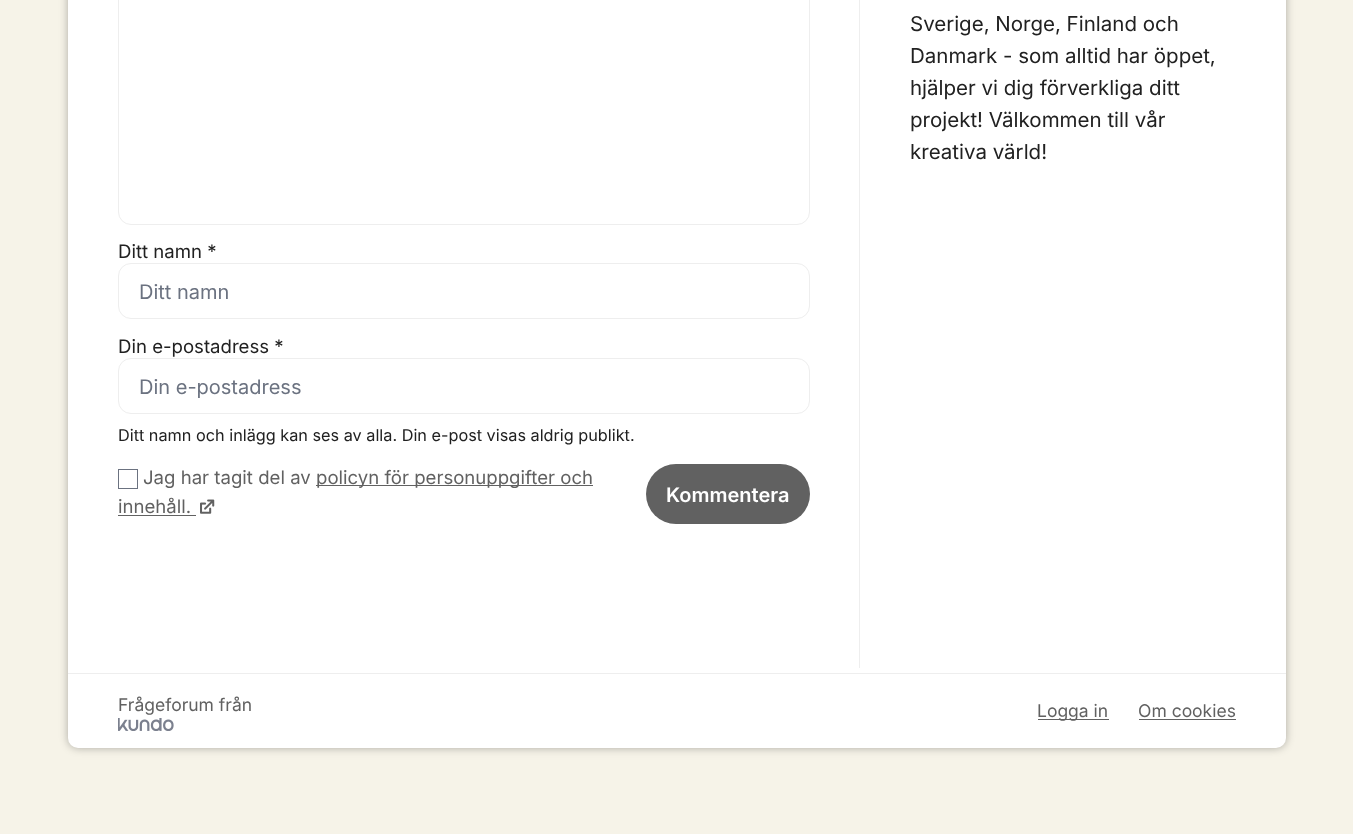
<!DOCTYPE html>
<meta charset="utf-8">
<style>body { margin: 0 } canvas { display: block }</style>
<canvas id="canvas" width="1353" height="834"></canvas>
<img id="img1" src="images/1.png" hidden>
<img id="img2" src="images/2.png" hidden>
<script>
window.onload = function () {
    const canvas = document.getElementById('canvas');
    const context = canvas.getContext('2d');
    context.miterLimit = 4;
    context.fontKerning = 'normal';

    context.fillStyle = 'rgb(246, 243, 232)';
    context.fillRect(0, 0, 1353, 834);
    context.fillStyle = 'rgba(0, 0, 0, 0.3)';
    context.filter = 'blur(4px)';
    context.beginPath();
    context.roundRect(68, -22, 1218, 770, 10);
    context.fill();
    context.filter = 'none';
    context.fillStyle = 'rgb(255, 255, 255)';
    context.fillRect(68, 0, 1218, 673);
    context.fillStyle = 'rgb(238, 238, 238)';
    context.fillRect(859, 0, 1, 668);
    context.beginPath();
    context.roundRect(118.5, -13.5, 691, 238, 12.5);
    context.strokeStyle = 'rgb(238, 238, 238)';
    context.stroke();
    context.beginPath();
    context.roundRect(118.5, 263.5, 691, 55, 12.5);
    context.stroke();
    context.beginPath();
    context.roundRect(118.5, 358.5, 691, 55, 12.5);
    context.stroke();
    context.strokeStyle = 'rgb(107, 114, 128)';
    context.strokeRect(118.5, 469.5, 19, 19);
    context.fillStyle = 'rgb(97, 97, 97)';
    context.fillRect(316, 485, 277, 1);
    context.fillRect(118, 515, 78, 1);
    context.drawImage(document.getElementById('img1'), 200, 499, 15, 15);
    context.beginPath();
    context.roundRect(646, 464, 164, 60, 30);
    context.fill();
    context.fillStyle = 'rgb(255, 255, 255)';
    context.beginPath();
    context.roundRect(68, 674, 1218, 74, [0, 0, 10, 10]);
    context.fill();
    context.fillStyle = 'rgb(238, 238, 238)';
    context.fillRect(68, 673, 1218, 1);
    context.drawImage(document.getElementById('img2'), 118, 718, 56, 13);
    context.fillStyle = 'rgb(97, 97, 97)';
    context.fillRect(1038, 719, 71, 1);
    context.fillRect(1139, 719, 97, 1);
    context.font = '20.5px Inter';
    context.fillStyle = 'rgb(33, 33, 33)';
    context.fillText('Sverige, Norge, Finland och', 910, 31);
    context.fillText('Danmark - som alltid har öppet,', 910, 63);
    context.fillText('hjälper vi dig förverkliga ditt', 910, 95);
    context.fillText('projekt! Välkommen till vår', 910, 127);
    context.fillText('kreativa värld!', 910, 159);
    context.font = '18.6px Inter';
    context.fillText('Ditt namn *', 118, 258);
    context.font = '20px Inter';
    context.fillStyle = 'rgb(107, 114, 128)';
    context.fillText('Ditt namn', 139, 299);
    context.font = '18.6px Inter';
    context.fillStyle = 'rgb(33, 33, 33)';
    context.fillText('Din e-postadress *', 118, 353);
    context.font = '20px Inter';
    context.fillStyle = 'rgb(107, 114, 128)';
    context.fillText('Din e-postadress', 139, 394);
    context.font = '16.25px Inter';
    context.fillStyle = 'rgb(33, 33, 33)';
    context.fillText('Ditt namn och inlägg kan ses av alla. Din e-post visas aldrig publikt.', 118, 441);
    context.font = '18.6px Inter';
    context.fillStyle = 'rgb(97, 97, 97)';
    context.fillText('policyn för personuppgifter och', 316, 484);
    context.fillText('innehåll.', 118, 513);
    context.fillText('Jag har tagit del av', 143, 484);
    context.font = '600 20px Inter';
    context.fillStyle = 'rgb(255, 255, 255)';
    context.fillText('Kommentera', 666, 502);
    context.font = '17.5px Inter';
    context.fillStyle = 'rgb(97, 97, 97)';
    context.fillText('Frågeforum från', 118, 711);
    context.fillText('Logga in', 1037, 717);
    context.fillText('Om cookies', 1138, 717);
};
</script>
